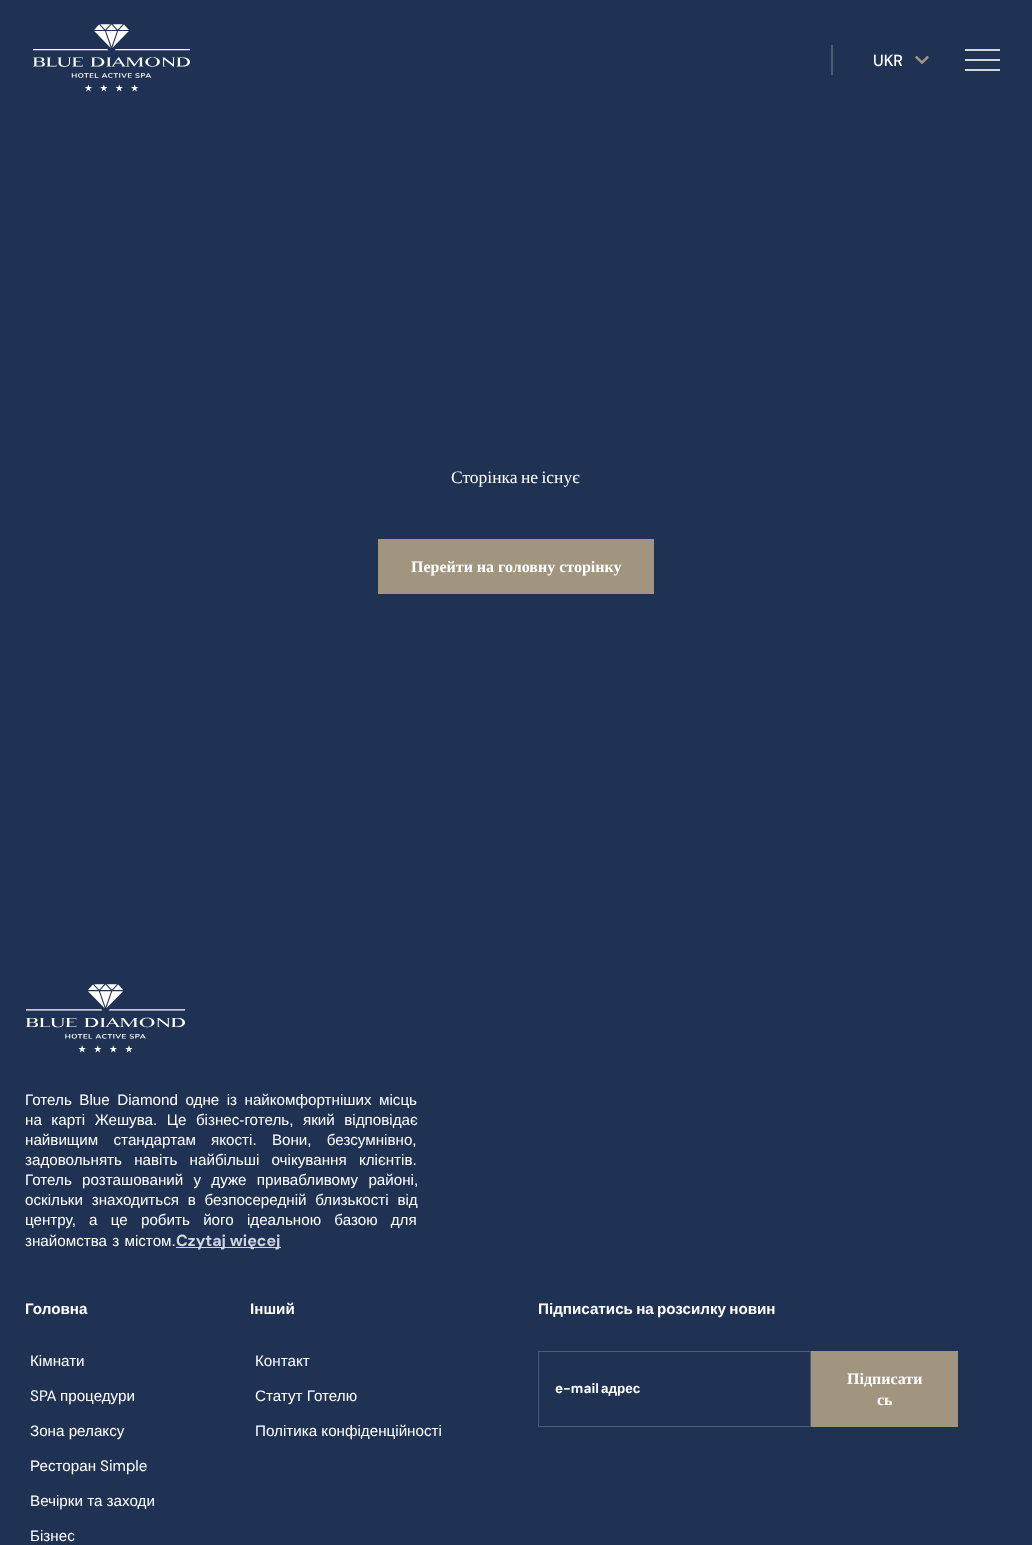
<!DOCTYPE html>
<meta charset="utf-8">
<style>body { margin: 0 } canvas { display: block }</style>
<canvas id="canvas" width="1032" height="1545"></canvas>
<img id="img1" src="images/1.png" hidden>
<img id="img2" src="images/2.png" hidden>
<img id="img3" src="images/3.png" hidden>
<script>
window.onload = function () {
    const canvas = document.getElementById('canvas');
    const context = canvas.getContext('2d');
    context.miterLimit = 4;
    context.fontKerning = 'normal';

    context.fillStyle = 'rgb(32, 50, 83)';
    context.fillRect(0, 0, 1032, 1545);
    context.drawImage(document.getElementById('img1'), 33, 24, 158, 68);
    context.fillStyle = 'rgb(77, 91, 117)';
    context.fillRect(831, 45, 2, 30);
    context.drawImage(document.getElementById('img2'), 915, 55, 14, 9);
    context.fillStyle = 'rgb(210, 214, 221)';
    context.fillRect(965, 49, 35, 2);
    context.fillRect(965, 59, 35, 2);
    context.fillRect(965, 69, 35, 2);
    context.fillStyle = 'rgb(161, 149, 128)';
    context.fillRect(378, 539, 276, 55);
    context.drawImage(document.getElementById('img3'), 26, 984, 160, 69);
    context.fillStyle = 'rgb(210, 214, 221)';
    context.fillRect(176, 1247, 105, 1);
    context.strokeStyle = 'rgb(77, 91, 117)';
    context.strokeRect(538.5, 1351.5, 272, 75);
    context.fillStyle = 'rgb(161, 149, 128)';
    context.fillRect(811, 1351, 147, 76);
    context.font = '500 16px DM Sans';
    context.fillStyle = 'rgb(255, 255, 255)';
    context.fillText('UKR', 873, 66);
    context.wordSpacing = '-1px';
    context.font = '17.5px Liberation Serif';
    context.fillText('Сторінка не існує', 451, 483);
    context.wordSpacing = '0px';
    context.font = 'bold 16px Liberation Serif';
    context.fillText('Перейти на головну сторінку', 411, 572);
    context.wordSpacing = '3.25px';
    context.font = '15.2px Liberation Sans';
    context.fillText('Готель Blue Diamond одне із найкомфортніших місць', 25, 1105);
    context.wordSpacing = '5.25px';
    context.fillText('на карті Жешува. Це бізнес-готель, який відповідає', 25, 1125);
    context.wordSpacing = '11px';
    context.fillText('найвищим стандартам якості. Вони, безсумнівно,', 25, 1145);
    context.wordSpacing = '8px';
    context.fillText('задовольнять навіть найбільші очікування клієнтів.', 25, 1165);
    context.wordSpacing = '6px';
    context.fillText('Готель розташований у дуже привабливому районі,', 25, 1185);
    context.wordSpacing = '4.5px';
    context.fillText('оскільки знаходиться в безпосередній близькості від', 25, 1205);
    context.wordSpacing = '9px';
    context.fillText('центру, а це робить його ідеальною базою для', 25, 1225);
    context.wordSpacing = '1px';
    context.fillText('знайомства з містом.', 25, 1246);
    context.wordSpacing = '0px';
    context.font = 'bold 16px "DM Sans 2"';
    context.fillStyle = 'rgb(210, 214, 221)';
    context.fillText('Czytaj więcej', 176, 1246);
    context.font = 'bold 15.2px Liberation Sans';
    context.fillStyle = 'rgb(255, 255, 255)';
    context.fillText('Головна', 25, 1314);
    context.font = '15.2px Liberation Sans';
    context.fillText('Кімнати', 30, 1366);
    context.font = '15.2px DM Sans';
    context.fillText('SPA', 30, 1401);
    context.font = '15.2px Liberation Sans';
    context.fillText('процедури', 60, 1401);
    context.fillText('Зона релаксу', 30, 1436);
    context.fillText('Ресторан', 30, 1471);
    context.font = '15.2px DM Sans';
    context.fillText('Simple', 100, 1471);
    context.font = '15.2px Liberation Sans';
    context.fillText('Вечірки та заходи', 30, 1506);
    context.fillText('Бізнес', 30, 1541);
    context.font = 'bold 15.2px Liberation Sans';
    context.fillText('Інший', 250, 1314);
    context.font = '15.2px Liberation Sans';
    context.fillText('Контакт', 255, 1366);
    context.fillText('Статут Готелю', 255, 1401);
    context.fillText('Політика конфіденційності', 255, 1436);
    context.wordSpacing = '-1px';
    context.font = 'bold 15.2px Liberation Sans';
    context.fillText('Підписатись на розсилку новин', 538, 1314);
    context.wordSpacing = '0px';
    context.font = 'bold 13.5px DM Sans';
    context.fillText('e-mail', 555, 1393);
    context.font = 'bold 13.5px Liberation Sans';
    context.fillText('адрес', 601, 1393);
    context.font = 'bold 16px Liberation Serif';
    context.fillText('Підписати', 847, 1384);
    context.fillText('сь', 877, 1405);
};
</script>
